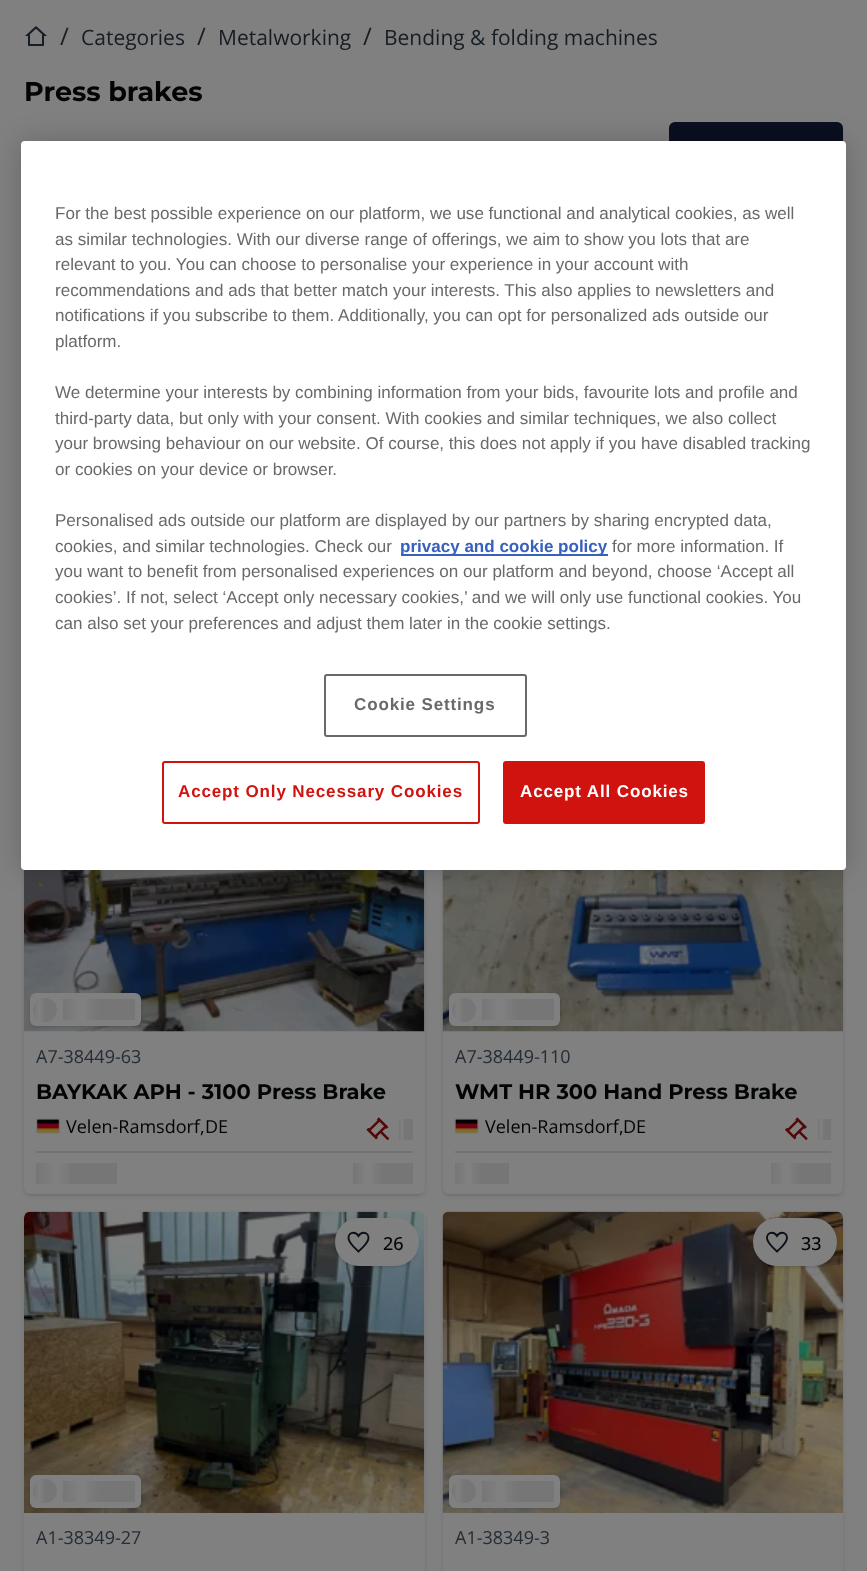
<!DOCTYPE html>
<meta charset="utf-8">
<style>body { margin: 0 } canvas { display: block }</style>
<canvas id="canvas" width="867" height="1571"></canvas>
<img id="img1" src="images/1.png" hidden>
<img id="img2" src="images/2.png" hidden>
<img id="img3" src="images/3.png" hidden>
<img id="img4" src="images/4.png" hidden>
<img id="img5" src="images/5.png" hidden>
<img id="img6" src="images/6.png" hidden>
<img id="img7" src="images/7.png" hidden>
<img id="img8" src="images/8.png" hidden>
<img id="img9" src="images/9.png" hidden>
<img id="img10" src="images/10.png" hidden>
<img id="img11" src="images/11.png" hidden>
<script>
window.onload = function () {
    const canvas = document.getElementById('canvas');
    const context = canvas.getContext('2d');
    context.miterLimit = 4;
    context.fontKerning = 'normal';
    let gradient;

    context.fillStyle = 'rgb(128, 128, 128)';
    context.fillRect(0, 0, 867, 1571);
    context.drawImage(document.getElementById('img1'), 25, 26, 22, 20);
    context.fillStyle = 'rgb(10, 15, 33)';
    context.beginPath();
    context.roundRect(670, 123, 172, 73, 5);
    context.fill();
    context.strokeStyle = 'rgb(10, 15, 33)';
    context.lineWidth = 2;
    context.stroke();
    context.fillStyle = 'rgba(0, 0, 0, 0.1)';
    context.filter = 'blur(2px)';
    context.beginPath();
    context.roundRect(24, 732, 401, 464, 6);
    context.fill();
    context.filter = 'none';
    context.filter = 'blur(1.5px)';
    context.beginPath();
    context.roundRect(26, 734, 397, 460, 5);
    context.fill();
    context.filter = 'none';
    context.fillStyle = 'rgb(128, 128, 128)';
    context.beginPath();
    context.roundRect(24, 731, 401, 463, 6);
    context.fill();
    context.drawImage(document.getElementById('img2'), 24, 869, 401, 163);
    context.fillStyle = 'rgba(0, 0, 0, 0.1)';
    context.filter = 'blur(2px)';
    context.beginPath();
    context.roundRect(30, 995, 111, 33, 6);
    context.fill();
    context.filter = 'none';
    context.filter = 'blur(1.5px)';
    context.beginPath();
    context.roundRect(32, 996, 108, 30, 5);
    context.fill();
    context.filter = 'none';
    context.fillStyle = 'rgb(128, 128, 128)';
    context.beginPath();
    context.roundRect(30, 993, 111, 33, 6);
    context.fill();
    context.fillStyle = 'rgb(118, 118, 118)';
    context.beginPath();
    context.arc(45, 1010, 12, 0, 2 * Math.PI);
    context.fill();
    context.save();
    context.beginPath();
    context.roundRect(33, 998, 24, 24, 12);
    context.clip();
    gradient = context.createLinearGradient(33, 1010, 39, 1010);
    gradient.addColorStop(0, 'rgba(128, 128, 128, 0)');
    gradient.addColorStop(1, 'rgb(128, 128, 128)');
    context.fillStyle = gradient;
    context.fillRect(33, 998, 6, 24);
    gradient = context.createLinearGradient(39, 1010, 45, 1010);
    gradient.addColorStop(0, 'rgb(128, 128, 128)');
    gradient.addColorStop(1, 'rgba(128, 128, 128, 0)');
    context.fillStyle = gradient;
    context.fillRect(39, 998, 6, 24);
    context.restore();
    context.fillRect(99, 999, 36, 21);
    gradient = context.createLinearGradient(63, 1010, 81, 1010);
    gradient.addColorStop(0, 'rgb(118, 118, 118)');
    gradient.addColorStop(1, 'rgb(128, 128, 128)');
    context.fillStyle = gradient;
    context.fillRect(63, 999, 14, 21);
    gradient = context.createLinearGradient(81, 1010, 99, 1010);
    gradient.addColorStop(0, 'rgb(128, 128, 128)');
    gradient.addColorStop(1, 'rgb(118, 118, 118)');
    context.fillStyle = gradient;
    context.fillRect(86, 999, 13, 21);
    context.drawImage(document.getElementById('img3'), 36, 1118, 24, 16);
    context.drawImage(document.getElementById('img4'), 366, 1117, 24, 24);
    context.fillStyle = 'rgb(118, 118, 118)';
    context.fillRect(405, 1119, 8, 21);
    gradient = context.createLinearGradient(399, 1130, 402, 1130);
    gradient.addColorStop(0, 'rgb(118, 118, 118)');
    gradient.addColorStop(1, 'rgb(128, 128, 128)');
    context.fillStyle = gradient;
    context.fillRect(399, 1119, 2, 21);
    gradient = context.createLinearGradient(402, 1130, 405, 1130);
    gradient.addColorStop(0, 'rgb(128, 128, 128)');
    gradient.addColorStop(1, 'rgb(118, 118, 118)');
    context.fillStyle = gradient;
    context.fillRect(403, 1119, 2, 21);
    context.fillStyle = 'rgb(112, 115, 118)';
    context.fillRect(36, 1151, 377, 2);
    context.fillStyle = 'rgb(118, 118, 118)';
    context.fillRect(57, 1163, 60, 21);
    gradient = context.createLinearGradient(36, 1173, 57, 1173);
    gradient.addColorStop(0, 'rgb(118, 118, 118)');
    gradient.addColorStop(1, 'rgb(128, 128, 128)');
    context.fillStyle = gradient;
    context.fillRect(36, 1163, 16, 21);
    gradient = context.createLinearGradient(56, 1173, 75, 1173);
    gradient.addColorStop(0, 'rgb(128, 128, 128)');
    gradient.addColorStop(1, 'rgba(128, 128, 128, 0)');
    context.fillStyle = gradient;
    context.fillRect(57, 1163, 13, 21);
    context.fillStyle = 'rgb(118, 118, 118)';
    context.fillRect(383, 1163, 30, 21);
    gradient = context.createLinearGradient(353, 1173, 368, 1173);
    gradient.addColorStop(0, 'rgb(118, 118, 118)');
    gradient.addColorStop(1, 'rgb(128, 128, 128)');
    context.fillStyle = gradient;
    context.fillRect(353, 1163, 11, 21);
    gradient = context.createLinearGradient(368, 1173, 383, 1173);
    gradient.addColorStop(0, 'rgb(128, 128, 128)');
    gradient.addColorStop(1, 'rgb(118, 118, 118)');
    context.fillStyle = gradient;
    context.fillRect(372, 1163, 11, 21);
    context.fillStyle = 'rgba(0, 0, 0, 0.1)';
    context.filter = 'blur(2px)';
    context.beginPath();
    context.roundRect(443, 732, 400, 464, 6);
    context.fill();
    context.filter = 'none';
    context.filter = 'blur(1.5px)';
    context.beginPath();
    context.roundRect(444, 734, 398, 460, 5);
    context.fill();
    context.filter = 'none';
    context.fillStyle = 'rgb(128, 128, 128)';
    context.beginPath();
    context.roundRect(443, 731, 400, 463, 6);
    context.fill();
    context.drawImage(document.getElementById('img5'), 442, 869, 401, 163);
    context.fillStyle = 'rgba(0, 0, 0, 0.1)';
    context.filter = 'blur(2px)';
    context.beginPath();
    context.roundRect(449, 995, 111, 33, 6);
    context.fill();
    context.filter = 'none';
    context.fillStyle = 'rgb(128, 128, 128)';
    context.beginPath();
    context.roundRect(449, 993, 111, 33, 6);
    context.fill();
    context.fillStyle = 'rgb(118, 118, 118)';
    context.beginPath();
    context.arc(464, 1010, 12, 0, 2 * Math.PI);
    context.fill();
    context.save();
    context.beginPath();
    context.roundRect(452, 998, 24, 24, 12);
    context.clip();
    gradient = context.createLinearGradient(452, 1010, 458, 1010);
    gradient.addColorStop(0, 'rgba(128, 128, 128, 0)');
    gradient.addColorStop(1, 'rgb(128, 128, 128)');
    context.fillStyle = gradient;
    context.fillRect(452, 998, 6, 24);
    gradient = context.createLinearGradient(458, 1010, 464, 1010);
    gradient.addColorStop(0, 'rgb(128, 128, 128)');
    gradient.addColorStop(1, 'rgba(128, 128, 128, 0)');
    context.fillStyle = gradient;
    context.fillRect(458, 998, 6, 24);
    context.restore();
    context.fillRect(518, 999, 36, 21);
    gradient = context.createLinearGradient(482, 1010, 500, 1010);
    gradient.addColorStop(0, 'rgb(118, 118, 118)');
    gradient.addColorStop(1, 'rgb(128, 128, 128)');
    context.fillStyle = gradient;
    context.fillRect(482, 999, 14, 21);
    gradient = context.createLinearGradient(500, 1010, 518, 1010);
    gradient.addColorStop(0, 'rgb(128, 128, 128)');
    gradient.addColorStop(1, 'rgb(118, 118, 118)');
    context.fillStyle = gradient;
    context.fillRect(505, 999, 13, 21);
    context.drawImage(document.getElementById('img6'), 454, 1118, 25, 16);
    context.drawImage(document.getElementById('img7'), 785, 1117, 23, 24);
    context.fillStyle = 'rgb(118, 118, 118)';
    context.fillRect(824, 1119, 7, 21);
    gradient = context.createLinearGradient(818, 1130, 821, 1130);
    gradient.addColorStop(0, 'rgb(118, 118, 118)');
    gradient.addColorStop(1, 'rgb(128, 128, 128)');
    context.fillStyle = gradient;
    context.fillRect(818, 1119, 2, 21);
    gradient = context.createLinearGradient(821, 1130, 824, 1130);
    gradient.addColorStop(0, 'rgb(128, 128, 128)');
    gradient.addColorStop(1, 'rgb(118, 118, 118)');
    context.fillStyle = gradient;
    context.fillRect(822, 1119, 2, 21);
    context.fillStyle = 'rgb(112, 115, 118)';
    context.fillRect(455, 1151, 376, 2);
    context.fillStyle = 'rgb(118, 118, 118)';
    context.fillRect(482, 1163, 27, 21);
    gradient = context.createLinearGradient(455, 1173, 468, 1173);
    gradient.addColorStop(0, 'rgb(118, 118, 118)');
    gradient.addColorStop(1, 'rgb(128, 128, 128)');
    context.fillStyle = gradient;
    context.fillRect(455, 1163, 10, 21);
    gradient = context.createLinearGradient(468, 1173, 482, 1173);
    gradient.addColorStop(0, 'rgb(128, 128, 128)');
    gradient.addColorStop(1, 'rgb(118, 118, 118)');
    context.fillStyle = gradient;
    context.fillRect(472, 1163, 10, 21);
    context.fillStyle = 'rgb(118, 118, 118)';
    context.fillRect(801, 1163, 30, 21);
    gradient = context.createLinearGradient(771, 1173, 786, 1173);
    gradient.addColorStop(0, 'rgb(118, 118, 118)');
    gradient.addColorStop(1, 'rgb(128, 128, 128)');
    context.fillStyle = gradient;
    context.fillRect(771, 1163, 11, 21);
    gradient = context.createLinearGradient(786, 1173, 801, 1173);
    gradient.addColorStop(0, 'rgb(128, 128, 128)');
    gradient.addColorStop(1, 'rgb(118, 118, 118)');
    context.fillStyle = gradient;
    context.fillRect(790, 1163, 11, 21);
    context.fillStyle = 'rgba(0, 0, 0, 0.1)';
    context.filter = 'blur(2px)';
    context.beginPath();
    context.roundRect(24, 1214, 401, 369, 6);
    context.fill();
    context.filter = 'none';
    context.fillStyle = 'rgb(128, 128, 128)';
    context.beginPath();
    context.roundRect(24, 1212, 401, 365, 6);
    context.fill();
    context.drawImage(document.getElementById('img8'), 24, 1211, 401, 302);
    context.fillStyle = 'rgba(0, 0, 0, 0.1)';
    context.filter = 'blur(2px)';
    context.beginPath();
    context.roundRect(335, 1220, 84, 48, 24);
    context.fill();
    context.filter = 'none';
    context.filter = 'blur(1.5px)';
    context.beginPath();
    context.roundRect(336, 1221, 81, 45, 22.5);
    context.fill();
    context.filter = 'none';
    context.fillStyle = 'rgb(128, 128, 128)';
    context.beginPath();
    context.roundRect(335, 1218, 84, 48, 24);
    context.fill();
    context.drawImage(document.getElementById('img9'), 347, 1231, 23, 22);
    context.fillStyle = 'rgba(0, 0, 0, 0.1)';
    context.filter = 'blur(2px)';
    context.beginPath();
    context.roundRect(30, 1476, 111, 33, 6);
    context.fill();
    context.filter = 'none';
    context.fillStyle = 'rgb(128, 128, 128)';
    context.beginPath();
    context.roundRect(30, 1475, 111, 33, 6);
    context.fill();
    context.fillStyle = 'rgb(118, 118, 118)';
    context.beginPath();
    context.arc(45, 1491, 12, 0, 2 * Math.PI);
    context.fill();
    context.save();
    context.beginPath();
    context.roundRect(33, 1479, 24, 24, 12);
    context.clip();
    gradient = context.createLinearGradient(33, 1491, 39, 1491);
    gradient.addColorStop(0, 'rgba(128, 128, 128, 0)');
    gradient.addColorStop(1, 'rgb(128, 128, 128)');
    context.fillStyle = gradient;
    context.fillRect(33, 1479, 6, 24);
    gradient = context.createLinearGradient(39, 1491, 45, 1491);
    gradient.addColorStop(0, 'rgb(128, 128, 128)');
    gradient.addColorStop(1, 'rgba(128, 128, 128, 0)');
    context.fillStyle = gradient;
    context.fillRect(39, 1479, 6, 24);
    context.restore();
    context.fillRect(99, 1481, 36, 21);
    gradient = context.createLinearGradient(63, 1491, 81, 1491);
    gradient.addColorStop(0, 'rgb(118, 118, 118)');
    gradient.addColorStop(1, 'rgb(128, 128, 128)');
    context.fillStyle = gradient;
    context.fillRect(63, 1481, 14, 21);
    gradient = context.createLinearGradient(81, 1491, 99, 1491);
    gradient.addColorStop(0, 'rgb(128, 128, 128)');
    gradient.addColorStop(1, 'rgb(118, 118, 118)');
    context.fillStyle = gradient;
    context.fillRect(86, 1481, 13, 21);
    context.fillStyle = 'rgba(0, 0, 0, 0.1)';
    context.filter = 'blur(2px)';
    context.beginPath();
    context.roundRect(443, 1214, 400, 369, 6);
    context.fill();
    context.filter = 'none';
    context.fillStyle = 'rgb(128, 128, 128)';
    context.beginPath();
    context.roundRect(443, 1212, 400, 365, 6);
    context.fill();
    context.drawImage(document.getElementById('img10'), 442, 1211, 401, 302);
    context.fillStyle = 'rgba(0, 0, 0, 0.1)';
    context.filter = 'blur(2px)';
    context.beginPath();
    context.roundRect(753, 1220, 84, 48, 24);
    context.fill();
    context.filter = 'none';
    context.filter = 'blur(1.5px)';
    context.beginPath();
    context.roundRect(755, 1221, 81, 45, 22.5);
    context.fill();
    context.filter = 'none';
    context.fillStyle = 'rgb(128, 128, 128)';
    context.beginPath();
    context.roundRect(753, 1218, 84, 48, 24);
    context.fill();
    context.drawImage(document.getElementById('img11'), 766, 1231, 22, 22);
    context.fillStyle = 'rgba(0, 0, 0, 0.1)';
    context.filter = 'blur(2px)';
    context.beginPath();
    context.roundRect(449, 1476, 111, 33, 6);
    context.fill();
    context.filter = 'none';
    context.fillStyle = 'rgb(128, 128, 128)';
    context.beginPath();
    context.roundRect(449, 1475, 111, 33, 6);
    context.fill();
    context.fillStyle = 'rgb(118, 118, 118)';
    context.beginPath();
    context.arc(464, 1491, 12, 0, 2 * Math.PI);
    context.fill();
    context.save();
    context.beginPath();
    context.roundRect(452, 1479, 24, 24, 12);
    context.clip();
    gradient = context.createLinearGradient(452, 1491, 458, 1491);
    gradient.addColorStop(0, 'rgba(128, 128, 128, 0)');
    gradient.addColorStop(1, 'rgb(128, 128, 128)');
    context.fillStyle = gradient;
    context.fillRect(452, 1479, 6, 24);
    gradient = context.createLinearGradient(458, 1491, 464, 1491);
    gradient.addColorStop(0, 'rgb(128, 128, 128)');
    gradient.addColorStop(1, 'rgba(128, 128, 128, 0)');
    context.fillStyle = gradient;
    context.fillRect(458, 1479, 6, 24);
    context.restore();
    context.fillRect(518, 1481, 36, 21);
    gradient = context.createLinearGradient(482, 1491, 500, 1491);
    gradient.addColorStop(0, 'rgb(118, 118, 118)');
    gradient.addColorStop(1, 'rgb(128, 128, 128)');
    context.fillStyle = gradient;
    context.fillRect(482, 1481, 14, 21);
    gradient = context.createLinearGradient(500, 1491, 518, 1491);
    gradient.addColorStop(0, 'rgb(128, 128, 128)');
    gradient.addColorStop(1, 'rgb(118, 118, 118)');
    context.fillStyle = gradient;
    context.fillRect(505, 1481, 13, 21);
    context.fillStyle = 'rgba(0, 0, 0, 0.2)';
    context.filter = 'blur(13.5px)';
    context.beginPath();
    context.roundRect(21, 141, 825, 729, 4);
    context.fill();
    context.filter = 'none';
    context.fillStyle = 'rgb(255, 255, 255)';
    context.beginPath();
    context.roundRect(21, 141, 825, 729, 4);
    context.fill();
    context.fillStyle = 'rgb(56, 96, 190)';
    context.fillRect(401, 554, 207, 2);
    context.beginPath();
    context.roundRect(325, 675, 201, 61, 2);
    context.strokeStyle = 'rgb(105, 105, 105)';
    context.stroke();
    context.beginPath();
    context.roundRect(163, 762, 316, 61, 2);
    context.strokeStyle = 'rgb(209, 19, 15)';
    context.stroke();
    context.fillStyle = 'rgb(209, 19, 15)';
    context.beginPath();
    context.roundRect(504, 762, 200, 61, 2);
    context.fill();
    context.stroke();
    context.font = '24px Open Sans';
    context.fillStyle = 'rgb(23, 29, 36)';
    context.fillText('/', 60, 45);
    context.font = '21px Open Sans';
    context.fillText('Categories', 81, 45);
    context.font = '24px Open Sans';
    context.fillText('/', 197, 45);
    context.font = '21px Open Sans';
    context.fillText('Metalworking', 218, 45);
    context.font = '24px Open Sans';
    context.fillText('/', 363, 45);
    context.font = '21px Open Sans';
    context.fillText('Bending & folding machines', 384, 45);
    context.font = 'bold 27px Montserrat';
    context.fillStyle = 'rgb(2, 4, 5)';
    context.fillText('Press brakes', 24, 101);
    context.font = '18px Open Sans';
    context.fillStyle = 'rgb(36, 44, 53)';
    context.fillText('A7-38449-63', 36, 1063);
    context.font = 'bold 21px Montserrat';
    context.fillStyle = 'rgb(2, 4, 5)';
    context.fillText('BAYKAK APH - 3100 Press Brake', 36, 1099);
    context.font = '18px Open Sans';
    context.fillText('Velen-Ramsdorf,', 66, 1133);
    context.fillText('DE', 205, 1133);
    context.fillStyle = 'rgb(36, 44, 53)';
    context.fillText('A7-38449-110', 455, 1063);
    context.font = 'bold 21px Montserrat';
    context.fillStyle = 'rgb(2, 4, 5)';
    context.fillText('WMT HR 300 Hand Press Brake', 455, 1099);
    context.font = '18px Open Sans';
    context.fillText('Velen-Ramsdorf,', 485, 1133);
    context.fillText('DE', 623, 1133);
    context.font = '500 18px Open Sans';
    context.fillText('26', 383, 1250);
    context.font = '18px Open Sans';
    context.fillStyle = 'rgb(36, 44, 53)';
    context.fillText('A1-38349-27', 36, 1544);
    context.font = '500 18px Open Sans';
    context.fillStyle = 'rgb(2, 4, 5)';
    context.fillText('33', 801, 1250);
    context.font = '18px Open Sans';
    context.fillStyle = 'rgb(36, 44, 53)';
    context.fillText('A1-38349-3', 455, 1544);
    context.font = '17.05px Liberation Sans';
    context.fillStyle = 'rgb(105, 105, 105)';
    context.fillText('For the best possible experience on our platform, we use functional and analytical cookies, as well', 55, 219);
    context.fillText('as similar technologies. With our diverse range of offerings, we aim to show you lots that are', 55, 245);
    context.fillText('relevant to you. You can choose to personalise your experience in your account with', 55, 270);
    context.fillText('recommendations and ads that better match your interests. This also applies to newsletters and', 55, 296);
    context.fillText('notifications if you subscribe to them. Additionally, you can opt for personalized ads outside our', 55, 321);
    context.fillText('platform.', 55, 347);
    context.fillText('We determine your interests by combining information from your bids, favourite lots and profile and', 55, 398);
    context.fillText('third-party data, but only with your consent. With cookies and similar techniques, we also collect', 55, 424);
    context.fillText('your browsing behaviour on our website. Of course, this does not apply if you have disabled tracking', 55, 449);
    context.fillText('or cookies on your device or browser.', 55, 475);
    context.fillText('Personalised ads outside our platform are displayed by our partners by sharing encrypted data,', 55, 526);
    context.fillText('cookies, and similar technologies. Check our', 55, 552);
    context.font = 'bold 17.05px Liberation Sans';
    context.fillStyle = 'rgb(56, 96, 190)';
    context.fillText('privacy and cookie policy', 400, 552);
    context.font = '17.05px Liberation Sans';
    context.fillStyle = 'rgb(105, 105, 105)';
    context.fillText('for more information. If', 612, 552);
    context.fillText('you want to benefit from personalised experiences on our platform and beyond, choose ‘Accept all', 55, 577);
    context.fillText('cookies’. If not, select ‘Accept only necessary cookies,’ and we will only use functional cookies. You', 55, 603);
    context.fillText('can also set your preferences and adjust them later in the cookie settings.', 55, 629);
    context.letterSpacing = '0.85px';
    context.font = 'bold 17.05px Liberation Sans';
    context.fillText('Cookie Settings', 354, 710);
    context.fillStyle = 'rgb(209, 19, 15)';
    context.fillText('Accept Only Necessary Cookies', 178, 797);
    context.fillStyle = 'rgb(255, 255, 255)';
    context.fillText('Accept All Cookies', 520, 797);
};
</script>
